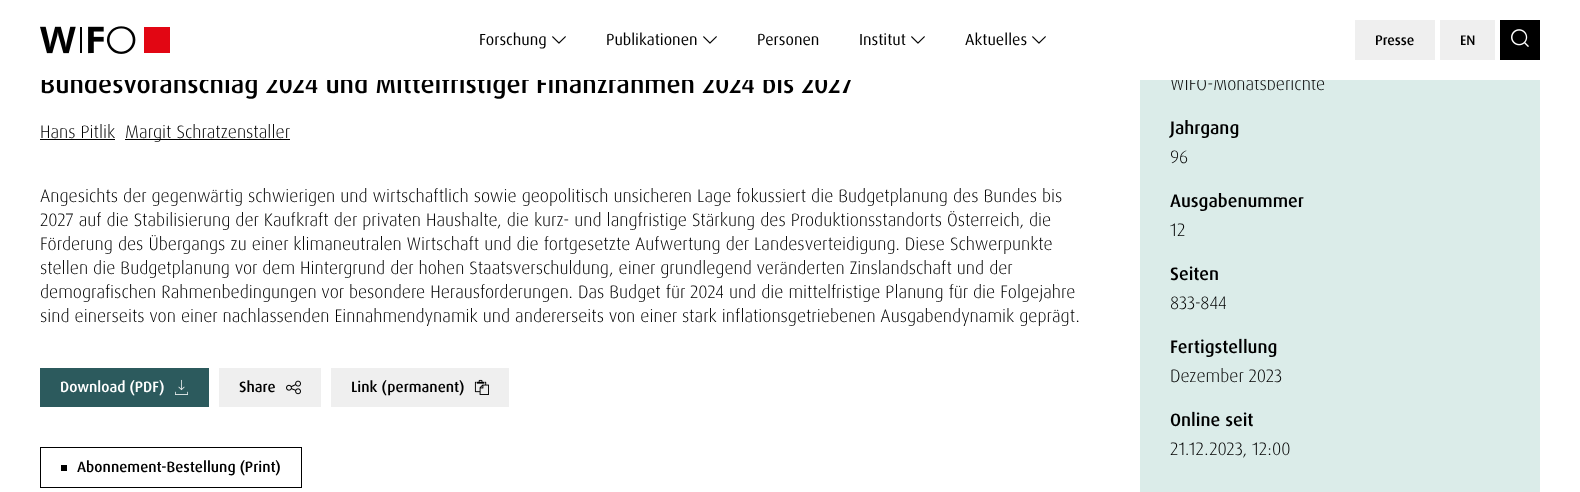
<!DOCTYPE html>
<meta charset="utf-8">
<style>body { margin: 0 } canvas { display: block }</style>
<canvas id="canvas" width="1580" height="492"></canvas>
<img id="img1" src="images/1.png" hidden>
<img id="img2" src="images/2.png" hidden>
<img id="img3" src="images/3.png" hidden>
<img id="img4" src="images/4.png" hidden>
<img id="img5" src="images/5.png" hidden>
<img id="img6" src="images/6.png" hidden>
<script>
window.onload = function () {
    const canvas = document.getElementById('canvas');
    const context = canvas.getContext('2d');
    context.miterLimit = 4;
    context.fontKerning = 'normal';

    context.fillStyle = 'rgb(255, 255, 255)';
    context.fillRect(0, 0, 1580, 492);
    context.drawImage(document.getElementById('img1'), 40, 26, 130, 28);
    context.drawImage(document.getElementById('img2'), 552, 36, 14, 8);
    context.drawImage(document.getElementById('img2'), 703, 36, 14, 8);
    context.drawImage(document.getElementById('img2'), 911, 36, 14, 8);
    context.drawImage(document.getElementById('img2'), 1032, 36, 14, 8);
    context.fillStyle = 'rgb(239, 239, 239)';
    context.fillRect(1355, 20, 80, 40);
    context.fillRect(1440, 20, 55, 40);
    context.fillStyle = 'rgb(0, 0, 0)';
    context.fillRect(1500, 20, 40, 40);
    context.drawImage(document.getElementById('img3'), 1511, 29, 18, 18);
    context.fillRect(40, 139, 75, 1);
    context.fillRect(125, 139, 165, 1);
    context.fillStyle = 'rgb(44, 90, 93)';
    context.fillRect(40, 368, 169, 39);
    context.drawImage(document.getElementById('img4'), 175, 379, 13, 16);
    context.fillStyle = 'rgb(239, 239, 239)';
    context.fillRect(219, 368, 102, 39);
    context.drawImage(document.getElementById('img5'), 286, 380, 15, 15);
    context.fillRect(331, 368, 178, 39);
    context.drawImage(document.getElementById('img6'), 474, 379, 15, 16);
    context.strokeStyle = 'rgb(0, 0, 0)';
    context.strokeRect(40.5, 447.5, 261, 40);
    context.fillStyle = 'rgb(0, 0, 0)';
    context.fillRect(61, 465, 6, 6);
    context.fillStyle = 'rgb(219, 236, 233)';
    context.fillRect(1140, 80, 400, 412);
    context.font = '16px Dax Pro';
    context.fillStyle = 'rgb(0, 0, 0)';
    context.fillText('Forschung', 479, 45);
    context.fillText('Publikationen', 606, 45);
    context.fillText('Personen', 757, 45);
    context.fillText('Institut', 859, 45);
    context.fillText('Aktuelles', 965, 45);
    context.font = '500 14px Dax Pro';
    context.fillText('Presse', 1375, 45);
    context.fillText('EN', 1460, 45);
    context.font = '500 26px Dax Pro';
    context.fillText('Bundesvoranschlag 2024 und Mittelfristiger Finanzrahmen 2024 bis 2027', 40, 93);
    context.font = '300 18px Dax Pro';
    context.fillText('Hans Pitlik', 40, 138);
    context.fillText('Margit Schratzenstaller', 125, 138);
    context.fillText('Angesichts der gegenwärtig schwierigen und wirtschaftlich sowie geopolitisch unsicheren Lage fokussiert die Budgetplanung des Bundes bis', 40, 202);
    context.fillText('2027 auf die Stabilisierung der Kaufkraft der privaten Haushalte, die kurz- und langfristige Stärkung des Produktionsstandorts Österreich, die', 40, 226);
    context.fillText('Förderung des Übergangs zu einer klimaneutralen Wirtschaft und die fortgesetzte Aufwertung der Landesverteidigung. Diese Schwerpunkte', 40, 250);
    context.fillText('stellen die Budgetplanung vor dem Hintergrund der hohen Staatsverschuldung, einer grundlegend veränderten Zinslandschaft und der', 40, 274);
    context.fillText('demografischen Rahmenbedingungen vor besondere Herausforderungen. Das Budget für 2024 und die mittelfristige Planung für die Folgejahre', 40, 298);
    context.fillText('sind einerseits von einer nachlassenden Einnahmendynamik und andererseits von einer stark inflationsgetriebenen Ausgabendynamik geprägt.', 40, 322);
    context.font = '500 15px Dax Pro';
    context.fillStyle = 'rgb(255, 255, 255)';
    context.fillText('Download (PDF)', 60, 392);
    context.fillStyle = 'rgb(0, 0, 0)';
    context.fillText('Share', 239, 392);
    context.fillText('Link (permanent)', 351, 392);
    context.fillText('Abonnement-Bestellung (Print)', 77, 472);
    context.font = '300 18px Dax Pro';
    context.fillText('WIFO-Monatsberichte', 1170, 90);
    context.fillStyle = 'rgb(255, 255, 255)';
    context.fillRect(41, 72, 1273, 8);
    context.font = '500 18px Dax Pro';
    context.fillStyle = 'rgb(0, 0, 0)';
    context.fillText('Jahrgang', 1170, 134);
    context.font = '300 18px Dax Pro';
    context.fillText('96', 1170, 163);
    context.font = '500 18px Dax Pro';
    context.fillText('Ausgabenummer', 1170, 207);
    context.font = '300 18px Dax Pro';
    context.fillText('12', 1170, 236);
    context.font = '500 18px Dax Pro';
    context.fillText('Seiten', 1170, 280);
    context.font = '300 18px Dax Pro';
    context.fillText('833-844', 1170, 309);
    context.font = '500 18px Dax Pro';
    context.fillText('Fertigstellung', 1170, 353);
    context.font = '300 18px Dax Pro';
    context.fillText('Dezember 2023', 1170, 382);
    context.font = '500 18px Dax Pro';
    context.fillText('Online seit', 1170, 426);
    context.font = '300 18px Dax Pro';
    context.fillText('21.12.2023, 12:00', 1170, 455);
};
</script>
